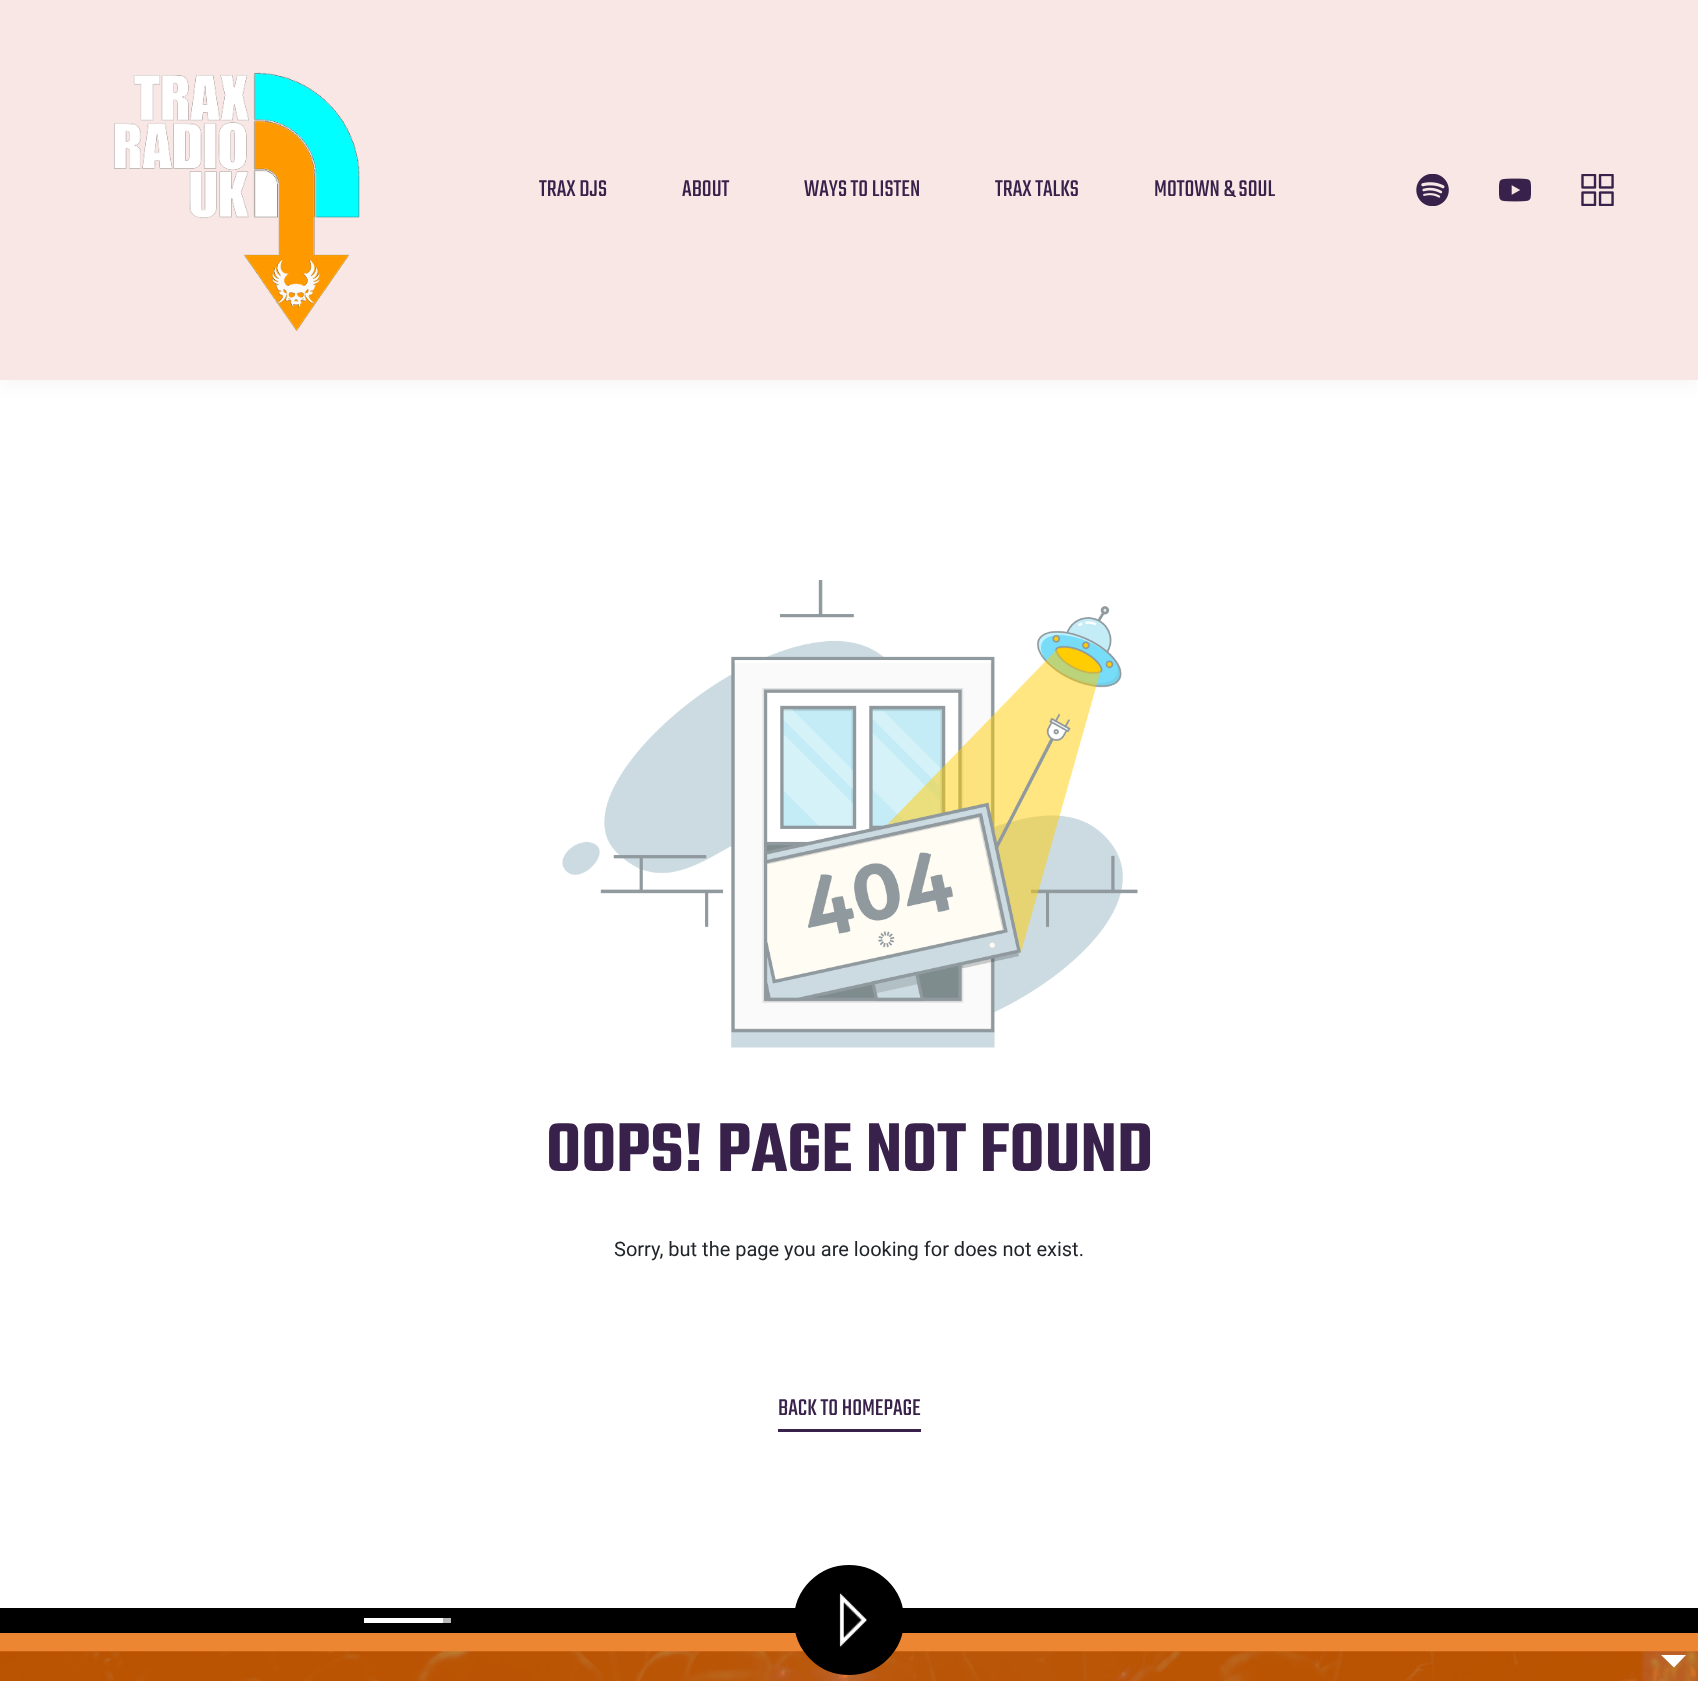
<!DOCTYPE html>
<meta charset="utf-8">
<style>body { margin: 0 } canvas { display: block }</style>
<canvas id="canvas" width="1698" height="1681"></canvas>
<img id="img1" src="images/1.png" hidden>
<img id="img2" src="images/2.png" hidden>
<img id="img3" src="images/3.png" hidden>
<img id="img4" src="images/4.png" hidden>
<img id="img5" src="images/5.png" hidden>
<img id="img6" src="images/6.png" hidden>
<img id="img7" src="images/7.png" hidden>
<script>
window.onload = function () {
    const canvas = document.getElementById('canvas');
    const context = canvas.getContext('2d');
    context.miterLimit = 4;
    context.fontKerning = 'normal';

    context.fillStyle = 'rgb(255, 255, 255)';
    context.fillRect(0, 0, 1698, 1681);
    context.fillStyle = 'rgb(237, 134, 51)';
    context.fillRect(0, 1633, 1698, 19);
    context.fillStyle = 'rgba(0, 0, 0, 0.04)';
    context.filter = 'blur(9.5px)';
    context.beginPath();
    context.rect(-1, 1, 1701, 383);
    context.fill();
    context.filter = 'none';
    context.fillStyle = 'rgb(248, 231, 229)';
    context.fillRect(0, 0, 1698, 380);
    context.drawImage(document.getElementById('img1'), 114, 72, 246, 259);
    context.drawImage(document.getElementById('img2'), 1416, 174, 33, 32);
    context.drawImage(document.getElementById('img3'), 1499, 178, 32, 24);
    context.drawImage(document.getElementById('img4'), 1581, 174, 33, 32);
    context.drawImage(document.getElementById('img5'), 562, 580, 576, 468);
    context.fillStyle = 'rgb(56, 33, 74)';
    context.fillRect(778, 1429, 143, 3);
    context.drawImage(document.getElementById('img6'), 0, 1651, 1698, 30);
    context.fillStyle = 'rgb(0, 0, 0)';
    context.fillRect(0, 1608, 1698, 25);
    context.beginPath();
    context.arc(849, 1620, 52.5, 0, 2 * Math.PI);
    context.fill();
    context.strokeStyle = 'rgb(0, 0, 0)';
    context.lineWidth = 5;
    context.stroke();
    context.fillStyle = 'rgb(184, 184, 184)';
    context.fillRect(443, 1618, 8, 5);
    context.fillStyle = 'rgb(255, 255, 255)';
    context.fillRect(364, 1618, 79, 5);
    context.drawImage(document.getElementById('img7'), 839, 1593, 28, 54);
    context.beginPath();
    context.moveTo(1661, 1655);
    context.lineTo(1686, 1655);
    context.lineTo(1674, 1667.5);
    context.closePath();
    context.fill();
    context.font = '25px Teko';
    context.fillStyle = 'rgb(56, 33, 74)';
    context.fillText('TRAX DJS', 539, 196);
    context.fillText('ABOUT', 682, 196);
    context.fillText('WAYS TO LISTEN', 804, 196);
    context.fillText('TRAX TALKS', 995, 196);
    context.fillText('MOTOWN & SOUL', 1154, 196);
    context.font = '600 75px Teko';
    context.fillText('OOPS! PAGE NOT FOUND', 546, 1171);
    context.font = '20px Roboto';
    context.fillStyle = 'rgb(33, 37, 41)';
    context.fillText('Sorry, but the page you are looking for does not exist.', 614, 1256);
    context.font = '25px Teko';
    context.fillStyle = 'rgb(56, 33, 74)';
    context.fillText('BACK TO HOMEPAGE', 778, 1415);
};
</script>
